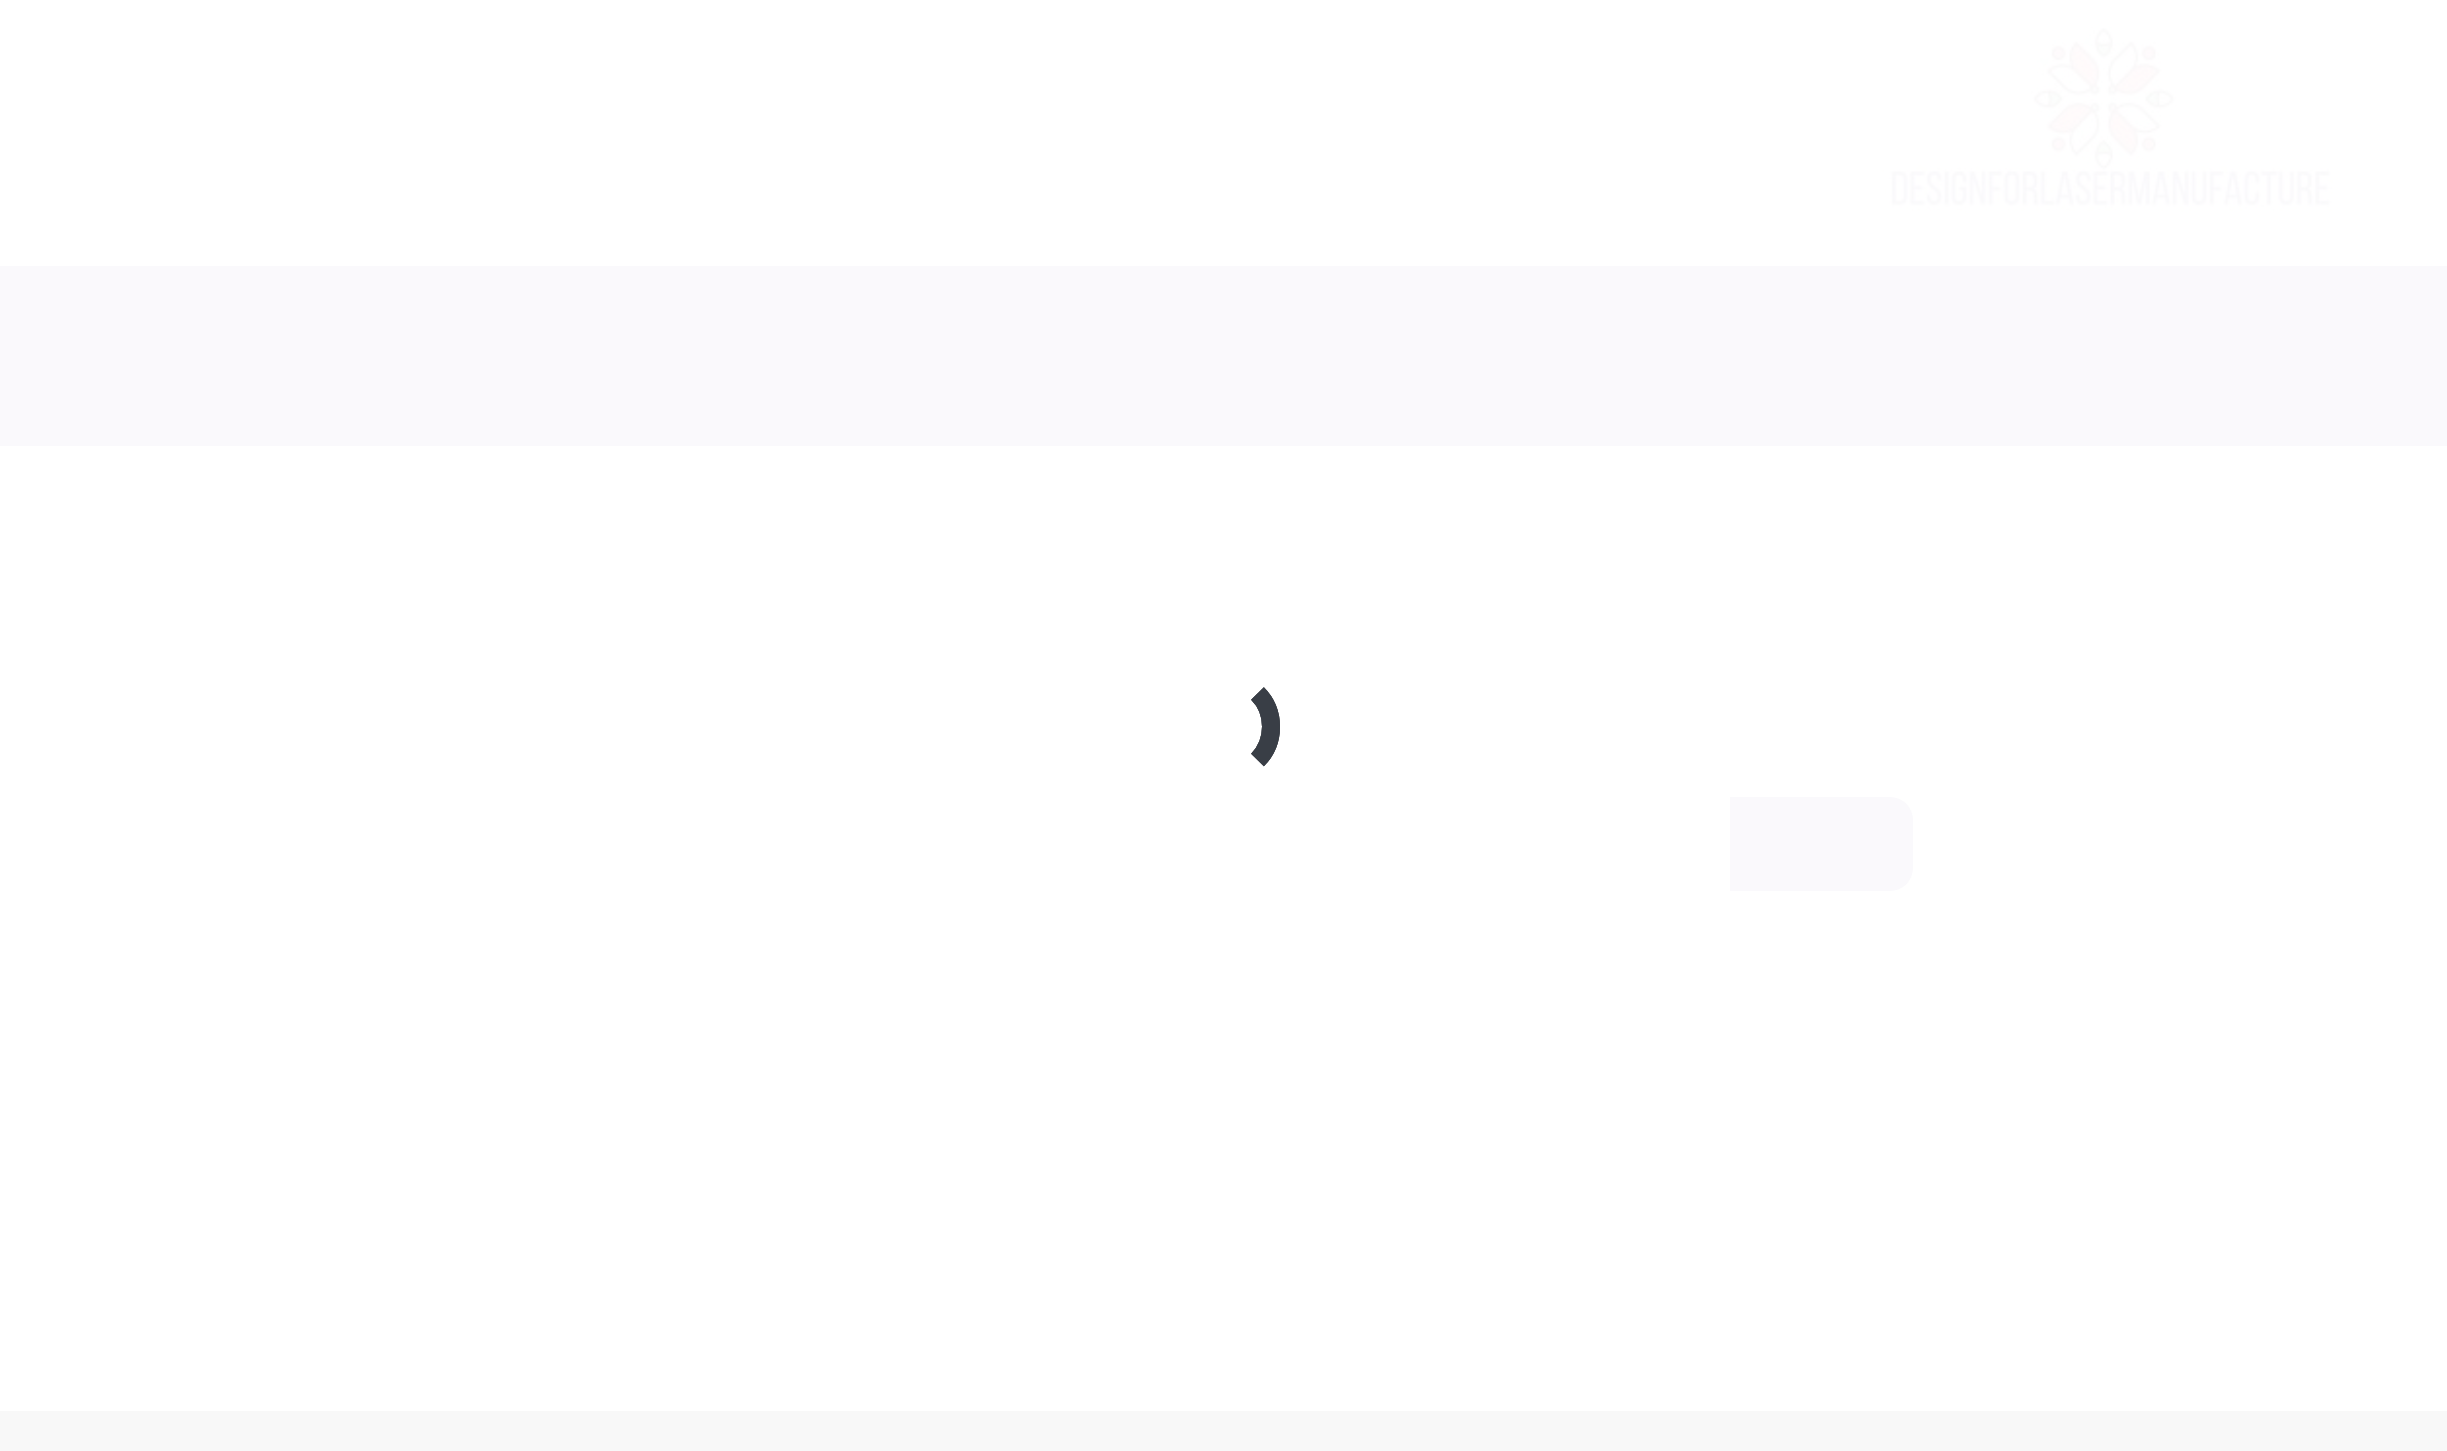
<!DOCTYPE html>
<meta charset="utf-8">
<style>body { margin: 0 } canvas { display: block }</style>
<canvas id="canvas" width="2447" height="1451"></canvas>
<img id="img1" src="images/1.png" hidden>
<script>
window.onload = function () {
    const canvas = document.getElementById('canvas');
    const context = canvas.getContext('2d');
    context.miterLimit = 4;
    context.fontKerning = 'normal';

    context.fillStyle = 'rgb(255, 255, 255)';
    context.fillRect(0, 0, 2447, 1451);
    context.drawImage(document.getElementById('img1'), 1880, 22, 458, 197);
    context.fillStyle = 'rgb(250, 249, 252)';
    context.fillRect(0, 266, 2447, 180);
    context.beginPath();
    context.moveTo(1257.5, 693.5);
    context.bezierCurveTo(1275.5, 711.5, 1275.5, 742, 1257.5, 760);
    context.strokeStyle = 'rgba(57, 62, 70, 0.89)';
    context.lineWidth = 18;
    context.stroke();
    context.beginPath();
    context.moveTo(1257.5, 693.5);
    context.bezierCurveTo(1275.5, 711.5, 1275.5, 742, 1257.5, 760);
    context.stroke();
    context.beginPath();
    context.moveTo(1257.5, 693.5);
    context.bezierCurveTo(1275.5, 711.5, 1275.5, 742, 1257.5, 760);
    context.stroke();
    context.beginPath();
    context.roundRect(1730, 797, 183, 94, [0, 23, 23, 0]);
    context.fill();
    context.fillStyle = 'rgb(248, 248, 248)';
    context.fillRect(0, 1411, 2447, 40);
};
</script>
